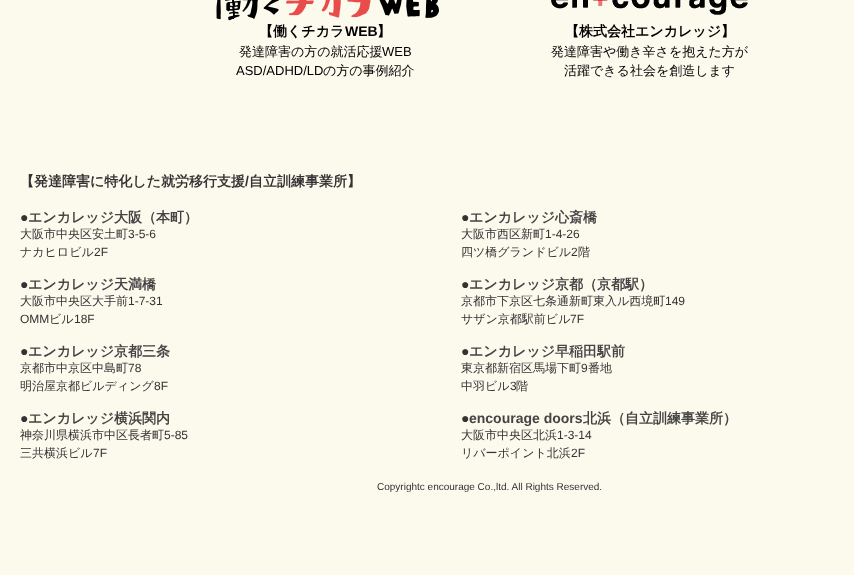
<!DOCTYPE html>
<meta charset="utf-8">
<style>body { margin: 0 } canvas { display: block }</style>
<canvas id="canvas" width="854" height="575"></canvas>
<img id="img1" src="images/1.png" hidden>
<img id="img2" src="images/2.png" hidden>
<script>
window.onload = function () {
    const canvas = document.getElementById('canvas');
    const context = canvas.getContext('2d');
    context.miterLimit = 4;
    context.fontKerning = 'normal';

    context.fillStyle = 'rgb(252, 249, 237)';
    context.fillRect(0, 0, 854, 575);
    context.drawImage(document.getElementById('img1'), 216, 0, 223, 21);
    context.drawImage(document.getElementById('img2'), 551, 0, 197, 15);
    context.font = 'bold 14px WenQuanYi Zen Hei';
    context.fillStyle = 'rgb(0, 0, 0)';
    context.fillText('【働くチカラ', 259, 36);
    context.font = 'bold 14px Liberation Sans';
    context.fillText('WEB', 345, 36);
    context.font = 'bold 14px WenQuanYi Zen Hei';
    context.fillText('】', 377, 36);
    context.font = '500 13px WenQuanYi Zen Hei';
    context.fillText('発達障害の方の就活応援', 239, 56);
    context.font = '13px Liberation Sans';
    context.fillText('WEB', 382, 56);
    context.fillText('ASD/ADHD/LD', 236, 75);
    context.font = '500 13px WenQuanYi Zen Hei';
    context.fillText('の方の事例紹介', 323, 75);
    context.font = 'bold 14px WenQuanYi Zen Hei';
    context.fillText('【株式会社エンカレッジ】', 565, 36);
    context.font = '500 13px WenQuanYi Zen Hei';
    context.fillText('発達障害や働き辛さを抱えた方が', 551, 56);
    context.fillText('活躍できる社会を創造します', 564, 75);
    context.font = 'bold 14px WenQuanYi Zen Hei';
    context.fillStyle = 'rgb(51, 51, 51)';
    context.fillText('【発達障害に特化した就労移行支援', 20, 186);
    context.font = 'bold 14px Liberation Sans';
    context.fillText('/', 245, 186);
    context.font = 'bold 14px WenQuanYi Zen Hei';
    context.fillText('自立訓練事業所】', 249, 186);
    context.font = 'bold 14px Liberation Sans';
    context.fillText('●', 20, 222);
    context.font = 'bold 14px WenQuanYi Zen Hei';
    context.fillStyle = 'rgb(68, 68, 68)';
    context.fillText('エンカレッジ大阪（本町）', 28, 222);
    context.font = '500 12px WenQuanYi Zen Hei';
    context.fillStyle = 'rgb(51, 51, 51)';
    context.fillText('大阪市中央区安土町', 20, 238);
    context.font = '12px Liberation Sans';
    context.fillText('3-5-6', 128, 238);
    context.font = '500 12px WenQuanYi Zen Hei';
    context.fillText('ナカヒロビル', 20, 256);
    context.font = '12px Liberation Sans';
    context.fillText('2F', 94, 256);
    context.font = 'bold 14px Liberation Sans';
    context.fillText('●', 461, 222);
    context.font = 'bold 14px WenQuanYi Zen Hei';
    context.fillStyle = 'rgb(68, 68, 68)';
    context.fillText('エンカレッジ心斎橋', 469, 222);
    context.font = '500 12px WenQuanYi Zen Hei';
    context.fillStyle = 'rgb(51, 51, 51)';
    context.fillText('大阪市西区新町', 461, 238);
    context.font = '12px Liberation Sans';
    context.fillText('1-4-26', 545, 238);
    context.font = '500 12px WenQuanYi Zen Hei';
    context.fillText('四ツ橋グランドビル', 461, 256);
    context.font = '12px Liberation Sans';
    context.fillText('2', 571, 256);
    context.font = '500 12px WenQuanYi Zen Hei';
    context.fillText('階', 578, 256);
    context.font = 'bold 14px Liberation Sans';
    context.fillText('●', 20, 289);
    context.font = 'bold 14px WenQuanYi Zen Hei';
    context.fillStyle = 'rgb(68, 68, 68)';
    context.fillText('エンカレッジ天満橋', 28, 289);
    context.font = '500 12px WenQuanYi Zen Hei';
    context.fillStyle = 'rgb(51, 51, 51)';
    context.fillText('大阪市中央区大手前', 20, 305);
    context.font = '12px Liberation Sans';
    context.fillText('1-7-31', 128, 305);
    context.fillText('OMM', 20, 323);
    context.font = '500 12px WenQuanYi Zen Hei';
    context.fillText('ビル', 49, 323);
    context.font = '12px Liberation Sans';
    context.fillText('18F', 74, 323);
    context.font = 'bold 14px Liberation Sans';
    context.fillText('●', 461, 289);
    context.font = 'bold 14px WenQuanYi Zen Hei';
    context.fillStyle = 'rgb(68, 68, 68)';
    context.fillText('エンカレッジ京都（京都駅）', 469, 289);
    context.font = '500 12px WenQuanYi Zen Hei';
    context.fillStyle = 'rgb(51, 51, 51)';
    context.fillText('京都市下京区七条通新町東入ル西境町', 461, 305);
    context.font = '12px Liberation Sans';
    context.fillText('149', 665, 305);
    context.font = '500 12px WenQuanYi Zen Hei';
    context.fillText('サザン京都駅前ビル', 461, 323);
    context.font = '12px Liberation Sans';
    context.fillText('7F', 570, 323);
    context.font = 'bold 14px Liberation Sans';
    context.fillText('●', 20, 356);
    context.font = 'bold 14px WenQuanYi Zen Hei';
    context.fillStyle = 'rgb(68, 68, 68)';
    context.fillText('エンカレッジ京都三条', 28, 356);
    context.font = '500 12px WenQuanYi Zen Hei';
    context.fillStyle = 'rgb(51, 51, 51)';
    context.fillText('京都市中京区中島町', 20, 372);
    context.font = '12px Liberation Sans';
    context.fillText('78', 128, 372);
    context.font = '500 12px WenQuanYi Zen Hei';
    context.fillText('明治屋京都ビルディング', 20, 390);
    context.font = '12px Liberation Sans';
    context.fillText('8F', 154, 390);
    context.font = 'bold 14px Liberation Sans';
    context.fillText('●', 461, 356);
    context.font = 'bold 14px WenQuanYi Zen Hei';
    context.fillStyle = 'rgb(68, 68, 68)';
    context.fillText('エンカレッジ早稲田駅前', 469, 356);
    context.font = '500 12px WenQuanYi Zen Hei';
    context.fillStyle = 'rgb(51, 51, 51)';
    context.fillText('東京都新宿区馬場下町', 461, 372);
    context.font = '12px Liberation Sans';
    context.fillText('9', 581, 372);
    context.font = '500 12px WenQuanYi Zen Hei';
    context.fillText('番地', 588, 372);
    context.fillText('中羽ビル', 461, 390);
    context.font = '12px Liberation Sans';
    context.fillText('3', 510, 390);
    context.font = '500 12px WenQuanYi Zen Hei';
    context.fillText('階', 516, 390);
    context.font = 'bold 14px Liberation Sans';
    context.fillText('●', 20, 423);
    context.font = 'bold 14px WenQuanYi Zen Hei';
    context.fillStyle = 'rgb(68, 68, 68)';
    context.fillText('エンカレッジ横浜関内', 28, 423);
    context.font = '500 12px WenQuanYi Zen Hei';
    context.fillStyle = 'rgb(51, 51, 51)';
    context.fillText('神奈川県横浜市中区長者町', 20, 439);
    context.font = '12px Liberation Sans';
    context.fillText('5-85', 164, 439);
    context.font = '500 12px WenQuanYi Zen Hei';
    context.fillText('三共横浜ビル', 20, 457);
    context.font = '12px Liberation Sans';
    context.fillText('7F', 93, 457);
    context.font = 'bold 14px Liberation Sans';
    context.fillText('●', 461, 423);
    context.fillStyle = 'rgb(68, 68, 68)';
    context.fillText('encourage doors', 469, 423);
    context.font = 'bold 14px WenQuanYi Zen Hei';
    context.fillText('北浜（自立訓練事業所）', 583, 423);
    context.font = '500 12px WenQuanYi Zen Hei';
    context.fillStyle = 'rgb(51, 51, 51)';
    context.fillText('大阪市中央区北浜', 461, 439);
    context.font = '12px Liberation Sans';
    context.fillText('1-3-14', 557, 439);
    context.font = '500 12px WenQuanYi Zen Hei';
    context.fillText('リバーポイント北浜', 461, 457);
    context.font = '12px Liberation Sans';
    context.fillText('2F', 571, 457);
    context.font = '10px Liberation Sans';
    context.fillText('Copyrightc encourage Co.,ltd. All Rights Reserved.', 377, 490);
};
</script>
